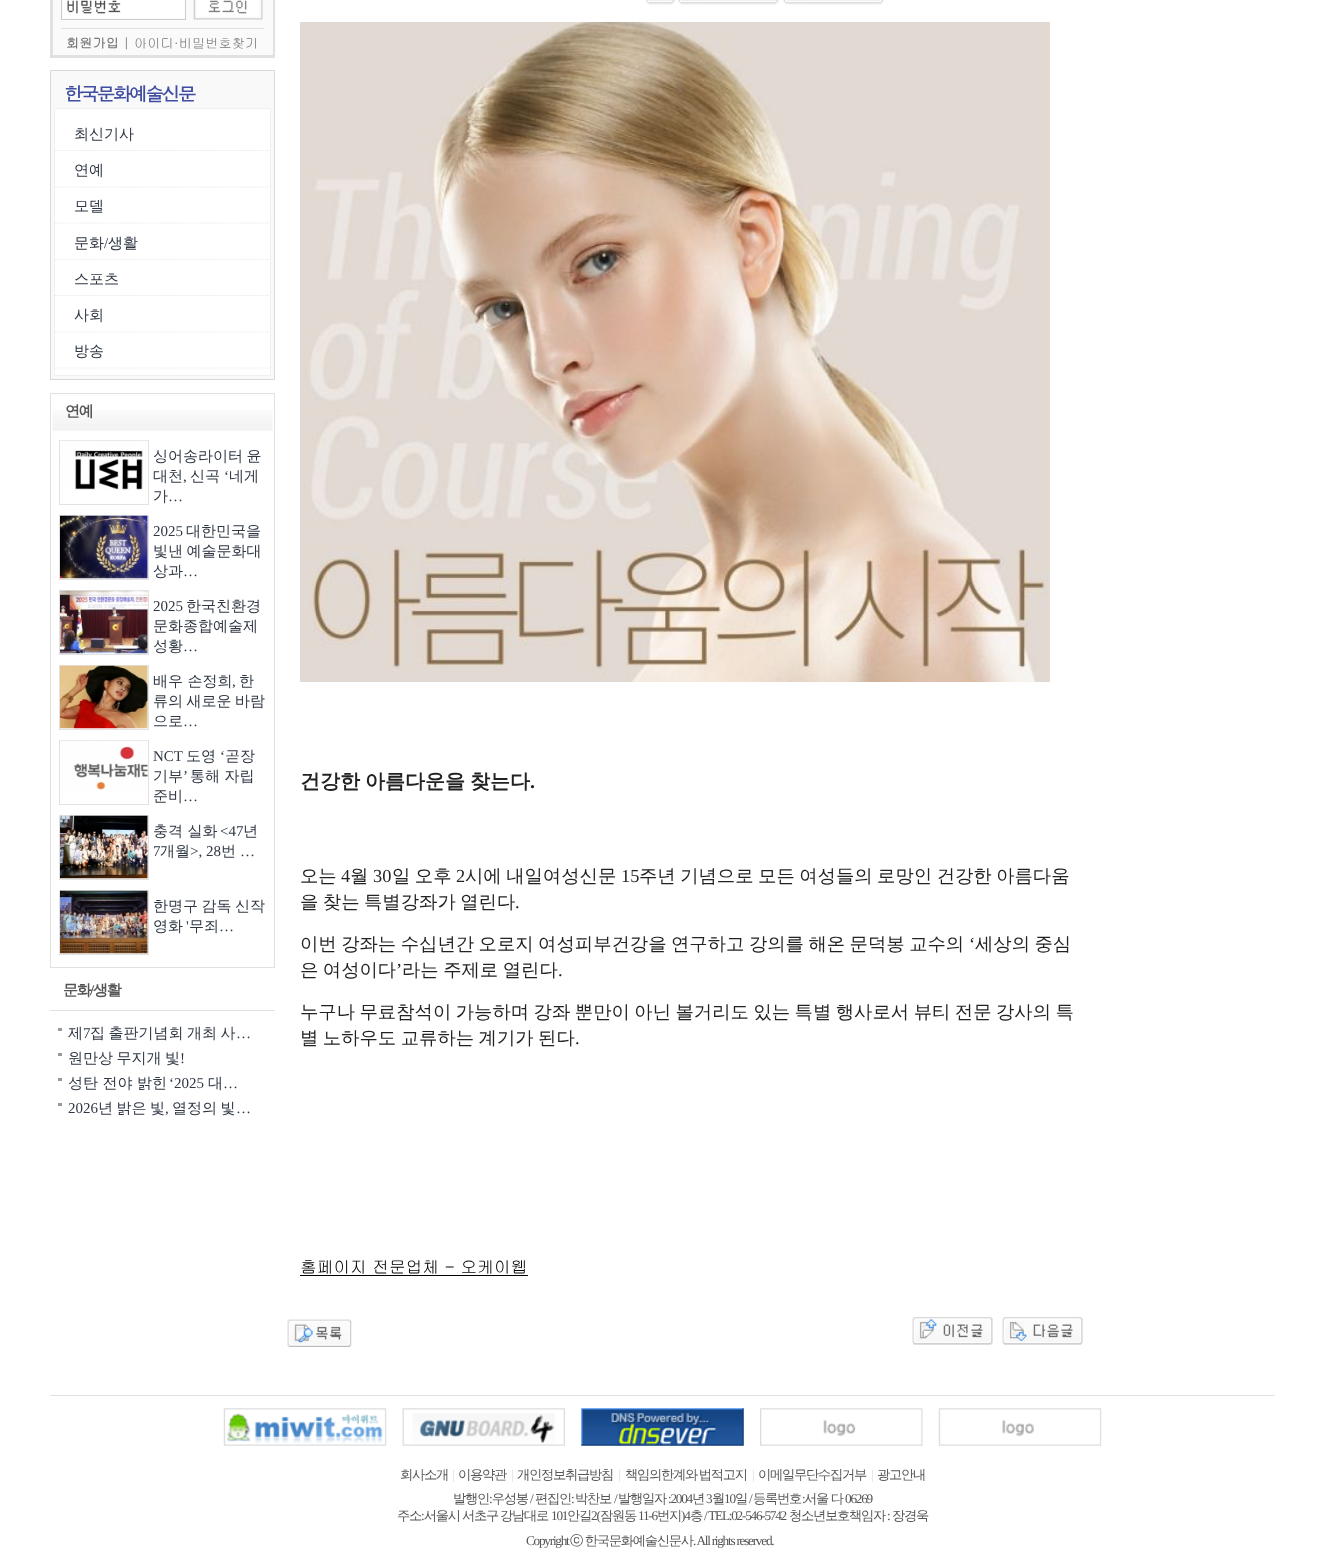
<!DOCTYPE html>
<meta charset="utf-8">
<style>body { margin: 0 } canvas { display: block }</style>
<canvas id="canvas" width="1325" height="1561"></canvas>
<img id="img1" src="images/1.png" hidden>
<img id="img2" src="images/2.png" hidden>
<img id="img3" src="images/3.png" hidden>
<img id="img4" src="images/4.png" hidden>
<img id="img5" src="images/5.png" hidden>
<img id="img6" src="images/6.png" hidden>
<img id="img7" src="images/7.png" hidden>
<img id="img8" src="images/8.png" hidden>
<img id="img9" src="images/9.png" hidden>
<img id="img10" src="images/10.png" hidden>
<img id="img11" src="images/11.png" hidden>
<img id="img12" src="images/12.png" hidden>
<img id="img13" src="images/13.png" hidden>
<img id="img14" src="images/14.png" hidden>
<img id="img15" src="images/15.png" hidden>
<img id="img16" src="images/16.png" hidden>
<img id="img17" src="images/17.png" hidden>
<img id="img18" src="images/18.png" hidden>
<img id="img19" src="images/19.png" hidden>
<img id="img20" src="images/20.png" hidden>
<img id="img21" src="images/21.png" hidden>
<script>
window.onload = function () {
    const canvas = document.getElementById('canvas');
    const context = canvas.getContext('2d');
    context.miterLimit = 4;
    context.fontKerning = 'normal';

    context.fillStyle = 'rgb(255, 255, 255)';
    context.fillRect(0, 0, 1325, 1561);
    context.fillStyle = 'rgb(225, 225, 225)';
    context.fillRect(50, 0, 225, 58);
    context.fillStyle = 'rgb(250, 250, 250)';
    context.fillRect(53, 0, 220, 55);
    context.drawImage(document.getElementById('img1'), 63, 0, 122, 18);
    context.strokeStyle = 'rgb(204, 204, 204)';
    context.strokeRect(61.5, -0.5, 124, 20);
    context.drawImage(document.getElementById('img2'), 193, 0, 70, 20);
    context.fillStyle = 'rgb(225, 225, 225)';
    context.fillRect(61, 28, 203, 1);
    context.fillStyle = 'rgb(248, 249, 248)';
    context.beginPath();
    context.rect(50.5, 70.5, 224, 309);
    context.fill();
    context.strokeStyle = 'rgb(216, 216, 216)';
    context.stroke();
    context.fillStyle = 'rgb(255, 255, 255)';
    context.beginPath();
    context.rect(54.5, 108.5, 216, 267);
    context.fill();
    context.strokeStyle = 'rgb(240, 240, 240)';
    context.stroke();
    context.beginPath();
    context.moveTo(55, 150.5);
    context.lineTo(270, 150.5);
    context.strokeStyle = 'rgb(231, 231, 231)';
    context.lineWidth = 1.2;
    context.setLineDash([1.25, 1.25]);
    context.stroke();
    context.beginPath();
    context.moveTo(55, 187);
    context.lineTo(270, 187);
    context.stroke();
    context.beginPath();
    context.moveTo(55, 223);
    context.lineTo(270, 223);
    context.stroke();
    context.beginPath();
    context.moveTo(55, 259.5);
    context.lineTo(270, 259.5);
    context.stroke();
    context.beginPath();
    context.moveTo(55, 295.5);
    context.lineTo(270, 295.5);
    context.stroke();
    context.beginPath();
    context.moveTo(55, 332);
    context.lineTo(270, 332);
    context.stroke();
    context.beginPath();
    context.moveTo(55, 368);
    context.lineTo(270, 368);
    context.stroke();
    context.strokeStyle = 'rgb(225, 225, 225)';
    context.lineWidth = 1;
    context.setLineDash([]);
    context.strokeRect(50.5, 393.5, 224, 574);
    context.drawImage(document.getElementById('img3'), 52, 410, 221, 21);
    context.strokeStyle = 'rgb(226, 226, 226)';
    context.strokeRect(59.5, 440.5, 89, 64);
    context.drawImage(document.getElementById('img4'), 60, 440, 87, 50);
    context.strokeRect(59.5, 515.5, 89, 64);
    context.drawImage(document.getElementById('img5'), 60, 515, 88, 64);
    context.strokeRect(59.5, 590.5, 89, 64);
    context.drawImage(document.getElementById('img6'), 60, 590, 88, 64);
    context.strokeRect(59.5, 665.5, 89, 64);
    context.drawImage(document.getElementById('img7'), 60, 665, 88, 64);
    context.strokeRect(59.5, 740.5, 89, 64);
    context.drawImage(document.getElementById('img8'), 60, 740, 88, 51);
    context.strokeRect(59.5, 815.5, 89, 64);
    context.drawImage(document.getElementById('img9'), 60, 815, 88, 64);
    context.strokeRect(59.5, 890.5, 89, 64);
    context.drawImage(document.getElementById('img10'), 60, 890, 88, 64);
    context.fillStyle = 'rgb(225, 225, 225)';
    context.fillRect(50, 1010, 225, 1);
    context.fillStyle = 'rgb(153, 153, 153)';
    context.fillRect(58, 1028, 4, 3);
    context.fillRect(58, 1053, 4, 3);
    context.fillRect(58, 1078, 4, 3);
    context.fillRect(58, 1103, 4, 3);
    context.drawImage(document.getElementById('img11'), 646, 0, 29, 5);
    context.drawImage(document.getElementById('img12'), 678, 0, 101, 5);
    context.drawImage(document.getElementById('img12'), 783, 0, 101, 5);
    context.drawImage(document.getElementById('img13'), 300, 22, 750, 660);
    context.fillStyle = 'rgb(0, 0, 0)';
    context.fillRect(300, 1275, 228, 1);
    context.drawImage(document.getElementById('img14'), 287, 1319, 65, 28);
    context.drawImage(document.getElementById('img15'), 912, 1317, 81, 28);
    context.drawImage(document.getElementById('img16'), 1002, 1317, 81, 28);
    context.fillStyle = 'rgb(225, 225, 225)';
    context.fillRect(50, 1395, 1225, 1);
    context.drawImage(document.getElementById('img17'), 223, 1408, 164, 38);
    context.drawImage(document.getElementById('img18'), 402, 1408, 163, 38);
    context.drawImage(document.getElementById('img19'), 581, 1408, 163, 38);
    context.drawImage(document.getElementById('img20'), 760, 1408, 163, 38);
    context.drawImage(document.getElementById('img21'), 938, 1408, 164, 38);
    context.font = 'bold 13.25px Gulim';
    context.fillStyle = 'rgb(119, 119, 119)';
    context.fillText('회원가입', 66, 48);
    context.font = '13.25px Gulim';
    context.fillText('| 아이디·비밀번호찾기', 123, 48);
    context.letterSpacing = '-2.5px';
    context.font = 'bold 18.75px Dotum';
    context.fillStyle = 'rgb(63, 78, 161)';
    context.fillText('한국문화예술신문', 64, 101);
    context.letterSpacing = '0px';
    context.font = '500 15px WenQuanYi Zen Hei';
    context.fillStyle = 'rgb(47, 55, 67)';
    context.fillText('최신기사', 74, 139);
    context.fillText('연예', 74, 175);
    context.fillText('모델', 74, 211);
    context.fillText('문화', 74, 248);
    context.font = '15px Liberation Serif';
    context.fillText('/', 104, 248);
    context.font = '500 15px WenQuanYi Zen Hei';
    context.fillText('생활', 108, 248);
    context.fillText('스포츠', 74, 284);
    context.fillText('사회', 74, 320);
    context.fillText('방송', 74, 356);
    context.letterSpacing = '-1.25px';
    context.font = 'bold 15px WenQuanYi Zen Hei';
    context.fillStyle = 'rgb(85, 85, 85)';
    context.fillText('연예', 65, 416);
    context.letterSpacing = '0px';
    context.wordSpacing = '-1px';
    context.font = '500 15px WenQuanYi Zen Hei';
    context.fillStyle = 'rgb(47, 55, 67)';
    context.fillText('싱어송라이터 윤', 153, 461);
    context.wordSpacing = '0px';
    context.fillText('대천', 153, 481);
    context.fillText('신곡', 190, 481);
    context.font = '15px Liberation Serif';
    context.fillText('‘', 224, 481);
    context.font = '500 15px WenQuanYi Zen Hei';
    context.fillText('네게', 229, 481);
    context.font = '15px Liberation Serif';
    context.fillText(',', 183, 481);
    context.font = '500 15px WenQuanYi Zen Hei';
    context.fillText('가', 153, 501);
    context.font = '15px Liberation Serif';
    context.fillText('…', 168, 501);
    context.fillText('2025', 153, 536);
    context.font = '500 15px WenQuanYi Zen Hei';
    context.fillText('대한민국을', 186, 536);
    context.wordSpacing = '-1px';
    context.fillText('빛낸 예술문화대', 153, 556);
    context.wordSpacing = '0px';
    context.fillText('상과', 153, 576);
    context.font = '15px Liberation Serif';
    context.fillText('…', 183, 576);
    context.fillText('2025', 153, 611);
    context.font = '500 15px WenQuanYi Zen Hei';
    context.fillText('한국친환경', 186, 611);
    context.fillText('문화종합예술제', 153, 631);
    context.fillText('성황', 153, 651);
    context.font = '15px Liberation Serif';
    context.fillText('…', 183, 651);
    context.font = '500 15px WenQuanYi Zen Hei';
    context.fillText('배우 손정희', 153, 686);
    context.font = '15px Liberation Serif';
    context.fillText(',', 232, 686);
    context.font = '500 15px WenQuanYi Zen Hei';
    context.fillText('한', 239, 686);
    context.wordSpacing = '-1px';
    context.fillText('류의 새로운 바람', 153, 706);
    context.wordSpacing = '0px';
    context.fillText('으로', 153, 726);
    context.font = '15px Liberation Serif';
    context.fillText('…', 183, 726);
    context.fillText('NCT', 153, 761);
    context.font = '500 15px WenQuanYi Zen Hei';
    context.fillText('도영', 186, 761);
    context.font = '15px Liberation Serif';
    context.fillText('‘', 220, 761);
    context.font = '500 15px WenQuanYi Zen Hei';
    context.fillText('곧장', 225, 761);
    context.fillText('기부', 153, 781);
    context.font = '15px Liberation Serif';
    context.fillText('’', 183, 781);
    context.font = '500 15px WenQuanYi Zen Hei';
    context.fillText('통해 자립', 190, 781);
    context.fillText('준비', 153, 801);
    context.font = '15px Liberation Serif';
    context.fillText('…', 183, 801);
    context.font = '500 15px WenQuanYi Zen Hei';
    context.fillText('충격 실화', 153, 836);
    context.font = '15px Liberation Serif';
    context.fillText('<47', 220, 836);
    context.font = '500 15px WenQuanYi Zen Hei';
    context.fillText('년', 243, 836);
    context.font = '15px Liberation Serif';
    context.fillText('7', 153, 856);
    context.font = '500 15px WenQuanYi Zen Hei';
    context.fillText('개월', 160, 856);
    context.font = '15px Liberation Serif';
    context.fillText('>, 28', 190, 856);
    context.font = '500 15px WenQuanYi Zen Hei';
    context.fillText('번', 221, 856);
    context.font = '15px Liberation Serif';
    context.fillText('…', 240, 856);
    context.wordSpacing = '-1px';
    context.font = '500 15px WenQuanYi Zen Hei';
    context.fillText('한명구 감독 신작', 153, 911);
    context.wordSpacing = '0px';
    context.fillText('영화', 153, 931);
    context.font = '15px Liberation Serif';
    context.fillText('\'', 186, 931);
    context.font = '500 15px WenQuanYi Zen Hei';
    context.fillText('무죄', 189, 931);
    context.font = '15px Liberation Serif';
    context.fillText('…', 219, 931);
    context.letterSpacing = '-1.25px';
    context.font = 'bold 15px WenQuanYi Zen Hei';
    context.fillStyle = 'rgb(85, 85, 85)';
    context.fillText('문화', 63, 995);
    context.font = 'bold 15px Liberation Serif';
    context.fillText('/', 90, 995);
    context.font = 'bold 15px WenQuanYi Zen Hei';
    context.fillText('생활', 93, 995);
    context.letterSpacing = '0px';
    context.font = '500 15px WenQuanYi Zen Hei';
    context.fillStyle = 'rgb(47, 55, 67)';
    context.fillText('제', 68, 1038);
    context.font = '15px Liberation Serif';
    context.fillText('7', 83, 1038);
    context.wordSpacing = '-1px';
    context.font = '500 15px WenQuanYi Zen Hei';
    context.fillText('집 출판기념회 개최 사', 90, 1038);
    context.wordSpacing = '0px';
    context.font = '15px Liberation Serif';
    context.fillText('…', 236, 1038);
    context.wordSpacing = '-1px';
    context.font = '500 15px WenQuanYi Zen Hei';
    context.fillText('원만상 무지개 빛', 68, 1063);
    context.wordSpacing = '0px';
    context.font = '15px Liberation Serif';
    context.fillText('!', 180, 1063);
    context.font = '500 15px WenQuanYi Zen Hei';
    context.fillText('성탄 전야 밝힌', 68, 1088);
    context.font = '15px Liberation Serif';
    context.fillText('‘2025', 169, 1088);
    context.font = '500 15px WenQuanYi Zen Hei';
    context.fillText('대', 208, 1088);
    context.font = '15px Liberation Serif';
    context.fillText('…', 223, 1088);
    context.fillText('2026', 68, 1113);
    context.wordSpacing = '-1px';
    context.font = '500 15px WenQuanYi Zen Hei';
    context.fillText('년 밝은 빛', 98, 1113);
    context.wordSpacing = '0px';
    context.font = '15px Liberation Serif';
    context.fillText(',', 165, 1113);
    context.wordSpacing = '-1px';
    context.font = '500 15px WenQuanYi Zen Hei';
    context.fillText('열정의 빛', 172, 1113);
    context.wordSpacing = '0px';
    context.font = '15px Liberation Serif';
    context.fillText('…', 236, 1113);
    context.wordSpacing = '-1px';
    context.font = 'bold 20px WenQuanYi Zen Hei';
    context.fillStyle = 'rgb(34, 34, 34)';
    context.fillText('건강한 아름다운을 찾는다', 300, 788);
    context.wordSpacing = '0px';
    context.font = 'bold 20px Liberation Serif';
    context.fillText('.', 530, 788);
    context.font = '500 18.35px WenQuanYi Zen Hei';
    context.fillText('오는', 300, 882);
    context.font = '18.35px Liberation Serif';
    context.fillText('4', 341, 882);
    context.font = '500 18.35px WenQuanYi Zen Hei';
    context.fillText('월', 350, 882);
    context.font = '18.35px Liberation Serif';
    context.fillText('30', 373, 882);
    context.wordSpacing = '-1px';
    context.font = '500 18.35px WenQuanYi Zen Hei';
    context.fillText('일 오후', 392, 882);
    context.wordSpacing = '0px';
    context.font = '18.35px Liberation Serif';
    context.fillText('2', 456, 882);
    context.wordSpacing = '-1px';
    context.font = '500 18.35px WenQuanYi Zen Hei';
    context.fillText('시에 내일여성신문', 465, 882);
    context.wordSpacing = '0px';
    context.font = '18.35px Liberation Serif';
    context.fillText('15', 621, 882);
    context.wordSpacing = '-1px';
    context.font = '500 18.35px WenQuanYi Zen Hei';
    context.fillText('주년 기념으로 모든 여성들의 로망인 건강한 아름다움', 639, 882);
    context.fillText('을 찾는 특별강좌가 열린다', 300, 908);
    context.wordSpacing = '0px';
    context.font = '18.35px Liberation Serif';
    context.fillText('.', 515, 908);
    context.wordSpacing = '-1px';
    context.font = '500 18.35px WenQuanYi Zen Hei';
    context.fillText('이번 강좌는 수십년간 오로지 여성피부건강을 연구하고 강의를 해온 문덕봉 교수의', 300, 950);
    context.wordSpacing = '0px';
    context.font = '18.35px Liberation Serif';
    context.fillText('‘', 969, 950);
    context.wordSpacing = '-1px';
    context.font = '500 18.35px WenQuanYi Zen Hei';
    context.fillText('세상의 중심', 975, 950);
    context.fillText('은 여성이다', 300, 976);
    context.wordSpacing = '0px';
    context.font = '18.35px Liberation Serif';
    context.fillText('’', 396, 976);
    context.wordSpacing = '-1px';
    context.font = '500 18.35px WenQuanYi Zen Hei';
    context.fillText('라는 주제로 열린다', 402, 976);
    context.wordSpacing = '0px';
    context.font = '18.35px Liberation Serif';
    context.fillText('.', 558, 976);
    context.wordSpacing = '-1px';
    context.font = '500 18.35px WenQuanYi Zen Hei';
    context.fillText('누구나 무료참석이 가능하며 강좌 뿐만이 아닌 볼거리도 있는 특별 행사로서 뷰티 전문 강사의 특', 300, 1018);
    context.fillText('별 노하우도 교류하는 계기가 된다', 300, 1044);
    context.wordSpacing = '0px';
    context.font = '18.35px Liberation Serif';
    context.fillText('.', 575, 1044);
    context.font = '16.7px Gulim';
    context.fillStyle = 'rgb(0, 0, 0)';
    context.fillText('홈페이지 전문업체 - 오케이웹', 300, 1273);
    context.letterSpacing = '-1.25px';
    context.font = '500 13.25px WenQuanYi Zen Hei';
    context.fillStyle = 'rgb(85, 85, 85)';
    context.fillText('회사소개', 400, 1479);
    context.font = '13.25px Liberation Serif';
    context.fillStyle = 'rgb(221, 221, 221)';
    context.fillText('|', 452, 1479);
    context.font = '500 13.25px WenQuanYi Zen Hei';
    context.fillStyle = 'rgb(85, 85, 85)';
    context.fillText('이용약관', 458, 1479);
    context.font = '13.25px Liberation Serif';
    context.fillStyle = 'rgb(221, 221, 221)';
    context.fillText('|', 511, 1479);
    context.font = '500 13.25px WenQuanYi Zen Hei';
    context.fillStyle = 'rgb(85, 85, 85)';
    context.fillText('개인정보취급방침', 517, 1479);
    context.font = '13.25px Liberation Serif';
    context.fillStyle = 'rgb(221, 221, 221)';
    context.fillText('|', 618, 1479);
    context.wordSpacing = '-1px';
    context.font = '500 13.25px WenQuanYi Zen Hei';
    context.fillStyle = 'rgb(85, 85, 85)';
    context.fillText('책임의한계와 법적고지', 625, 1479);
    context.wordSpacing = '0px';
    context.font = '13.25px Liberation Serif';
    context.fillStyle = 'rgb(221, 221, 221)';
    context.fillText('|', 752, 1479);
    context.font = '500 13.25px WenQuanYi Zen Hei';
    context.fillStyle = 'rgb(85, 85, 85)';
    context.fillText('이메일무단수집거부', 758, 1479);
    context.font = '13.25px Liberation Serif';
    context.fillStyle = 'rgb(221, 221, 221)';
    context.fillText('|', 871, 1479);
    context.font = '500 13.25px WenQuanYi Zen Hei';
    context.fillStyle = 'rgb(85, 85, 85)';
    context.fillText('광고안내', 877, 1479);
    context.fillText('발행인 우성봉', 453, 1503);
    context.font = '13.25px Liberation Serif';
    context.fillText('/', 530, 1503);
    context.font = '500 13.25px WenQuanYi Zen Hei';
    context.fillText('편집인', 535, 1503);
    context.fillText('박찬보', 575, 1503);
    context.font = '13.25px Liberation Serif';
    context.fillText('/', 614, 1503);
    context.font = '500 13.25px WenQuanYi Zen Hei';
    context.fillText('발행일자', 618, 1503);
    context.font = '13.25px Liberation Serif';
    context.fillText(':2004', 668, 1503);
    context.font = '500 13.25px WenQuanYi Zen Hei';
    context.fillText('년', 692, 1503);
    context.font = '13.25px Liberation Serif';
    context.fillText('3', 706, 1503);
    context.font = '500 13.25px WenQuanYi Zen Hei';
    context.fillText('월', 712, 1503);
    context.font = '13.25px Liberation Serif';
    context.fillText('10', 724, 1503);
    context.font = '500 13.25px WenQuanYi Zen Hei';
    context.fillText('일', 735, 1503);
    context.font = '13.25px Liberation Serif';
    context.fillText('/', 749, 1503);
    context.font = '500 13.25px WenQuanYi Zen Hei';
    context.fillText('등록번호', 753, 1503);
    context.font = '13.25px Liberation Serif';
    context.fillText('06269', 845, 1503);
    context.fillText(':', 489, 1503);
    context.fillText(':', 571, 1503);
    context.fillText(':', 802, 1503);
    context.font = '500 13.25px WenQuanYi Zen Hei';
    context.fillText('서울 다', 804, 1503);
    context.fillText('주소 서울시', 397, 1520);
    context.fillText('서초구', 462, 1520);
    context.fillText('강남대로', 500, 1520);
    context.font = '13.25px Liberation Serif';
    context.fillText('101', 551, 1520);
    context.font = '500 13.25px WenQuanYi Zen Hei';
    context.fillText('안길', 567, 1520);
    context.font = '13.25px Liberation Serif';
    context.fillText('2(', 591, 1520);
    context.font = '500 13.25px WenQuanYi Zen Hei';
    context.fillText('잠원동', 600, 1520);
    context.font = '13.25px Liberation Serif';
    context.fillText('11-6', 638, 1520);
    context.font = '500 13.25px WenQuanYi Zen Hei';
    context.fillText('번지', 657, 1520);
    context.font = '13.25px Liberation Serif';
    context.fillText(')4', 681, 1520);
    context.font = '500 13.25px WenQuanYi Zen Hei';
    context.fillText('층', 690, 1520);
    context.font = '13.25px Liberation Serif';
    context.fillText('/ TEL:02-546-5742', 704, 1520);
    context.font = '500 13.25px WenQuanYi Zen Hei';
    context.fillText('청소년보호책임자', 789, 1520);
    context.fillText('장경욱', 892, 1520);
    context.font = '13.25px Liberation Serif';
    context.fillText(':', 421, 1520);
    context.fillText(':', 887, 1520);
    context.fillText('Copyright', 526, 1545);
    context.font = '500 13.25px WenQuanYi Zen Hei';
    context.fillText('ⓒ 한국문화예술신문사', 570, 1545);
    context.font = '13.25px Liberation Serif';
    context.fillText('. All rights reserved.', 693, 1545);
};
</script>
